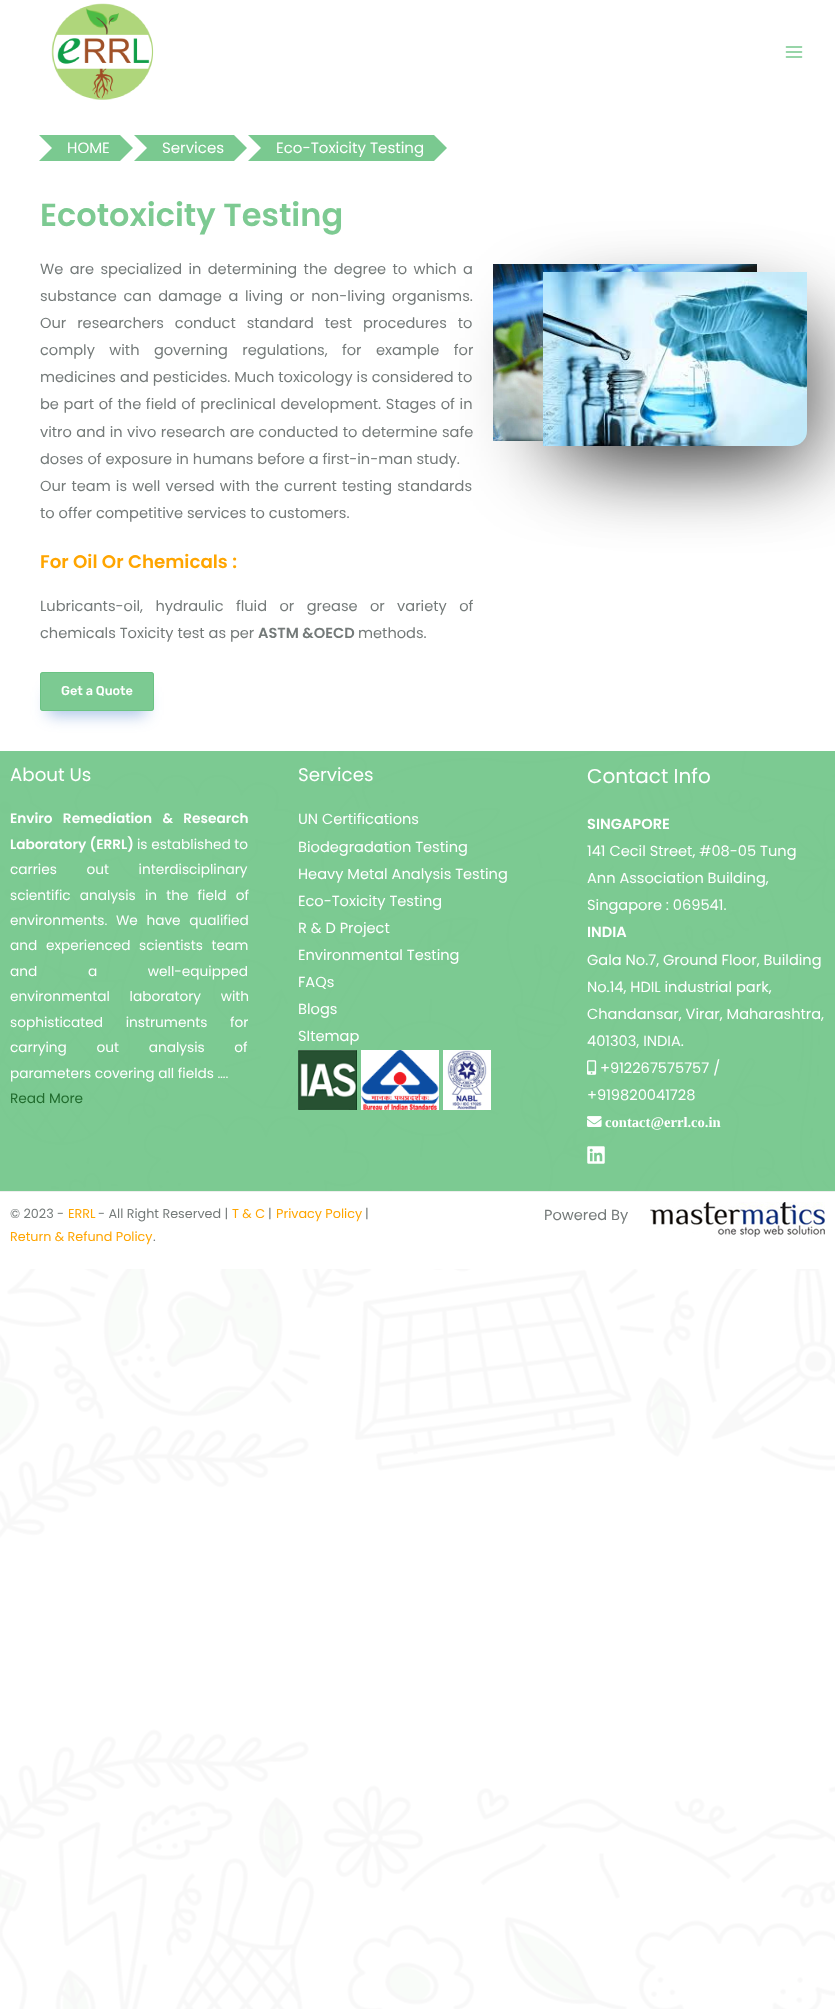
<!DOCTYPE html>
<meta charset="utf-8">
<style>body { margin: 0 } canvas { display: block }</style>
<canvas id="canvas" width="835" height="2009"></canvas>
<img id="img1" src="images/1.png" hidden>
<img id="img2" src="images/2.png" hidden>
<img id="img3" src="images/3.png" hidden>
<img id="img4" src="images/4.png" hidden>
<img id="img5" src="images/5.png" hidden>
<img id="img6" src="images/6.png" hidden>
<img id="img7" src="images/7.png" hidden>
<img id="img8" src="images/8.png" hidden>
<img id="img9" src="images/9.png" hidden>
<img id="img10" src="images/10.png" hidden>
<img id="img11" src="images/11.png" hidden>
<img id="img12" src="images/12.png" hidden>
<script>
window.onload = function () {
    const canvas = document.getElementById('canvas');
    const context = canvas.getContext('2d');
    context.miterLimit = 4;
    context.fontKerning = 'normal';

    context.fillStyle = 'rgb(255, 255, 255)';
    context.fillRect(0, 0, 835, 2009);
    context.drawImage(document.getElementById('img1'), 0, 751, 835, 1258);
    context.drawImage(document.getElementById('img2'), 51, 3, 103, 97);
    context.drawImage(document.getElementById('img3'), 785, 46, 18, 12);
    context.fillStyle = 'rgb(122, 201, 144)';
    context.fillRect(65, 135, 55, 26);
    context.beginPath();
    context.moveTo(39, 135);
    context.lineTo(65, 135);
    context.lineTo(52, 148);
    context.closePath();
    context.fill();
    context.fillRect(52, 135, 13, 26);
    context.beginPath();
    context.moveTo(65, 161);
    context.lineTo(39, 161);
    context.lineTo(52, 148);
    context.closePath();
    context.fill();
    context.beginPath();
    context.moveTo(120, 161);
    context.lineTo(120, 135);
    context.lineTo(133, 148);
    context.closePath();
    context.fill();
    context.fillRect(160, 135, 74, 26);
    context.beginPath();
    context.moveTo(134, 135);
    context.lineTo(160, 135);
    context.lineTo(147, 148);
    context.closePath();
    context.fill();
    context.fillRect(147, 135, 13, 26);
    context.beginPath();
    context.moveTo(160, 161);
    context.lineTo(134, 161);
    context.lineTo(147, 148);
    context.closePath();
    context.fill();
    context.beginPath();
    context.moveTo(234, 161);
    context.lineTo(234, 135);
    context.lineTo(247, 148);
    context.closePath();
    context.fill();
    context.fillRect(274, 135, 160, 26);
    context.beginPath();
    context.moveTo(248, 135);
    context.lineTo(274, 135);
    context.lineTo(261, 148);
    context.closePath();
    context.fill();
    context.fillRect(261, 135, 13, 26);
    context.beginPath();
    context.moveTo(274, 161);
    context.lineTo(248, 161);
    context.lineTo(261, 148);
    context.closePath();
    context.fill();
    context.beginPath();
    context.moveTo(434, 161);
    context.lineTo(434, 135);
    context.lineTo(447, 148);
    context.closePath();
    context.fill();
    context.save();
    context.beginPath();
    context.moveTo(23, 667);
    context.lineTo(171, 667);
    context.lineTo(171, 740);
    context.lineTo(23, 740);
    context.closePath();
    context.moveTo(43, 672);
    context.lineTo(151, 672);
    context.bezierCurveTo(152.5, 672, 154, 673.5, 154, 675);
    context.lineTo(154, 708);
    context.bezierCurveTo(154, 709.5, 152.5, 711, 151, 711);
    context.lineTo(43, 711);
    context.bezierCurveTo(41.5, 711, 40, 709.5, 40, 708);
    context.lineTo(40, 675);
    context.bezierCurveTo(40, 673.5, 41.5, 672, 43, 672);
    context.closePath();
    context.clip('evenodd');
    context.fillStyle = 'rgba(27, 95, 193, 0.38)';
    context.filter = 'blur(8px)';
    context.beginPath();
    context.rect(48, 692, 98, 23);
    context.fill();
    context.filter = 'none';
    context.restore();
    context.fillStyle = 'rgba(105, 194, 130, 0.87)';
    context.beginPath();
    context.roundRect(40, 672, 114, 39, 3);
    context.fill();
    context.beginPath();
    context.roundRect(40.5, 672.5, 113, 38, 2.5);
    context.strokeStyle = 'rgba(105, 194, 130, 0.87)';
    context.stroke();
    context.fillStyle = 'rgba(0, 0, 0, 0.5)';
    context.filter = 'blur(40px)';
    context.beginPath();
    context.rect(541, 312, 232, 145);
    context.fill();
    context.filter = 'none';
    context.drawImage(document.getElementById('img4'), 493, 264, 264, 177);
    context.filter = 'blur(40px)';
    context.beginPath();
    context.rect(591, 320, 232, 142);
    context.fill();
    context.filter = 'none';
    context.drawImage(document.getElementById('img5'), 543, 272, 264, 174);
    context.fillStyle = 'rgba(105, 194, 130, 0.87)';
    context.fillRect(0, 751, 835, 440);
    context.drawImage(document.getElementById('img6'), 298, 1050, 59, 60);
    context.drawImage(document.getElementById('img7'), 361, 1050, 78, 60);
    context.drawImage(document.getElementById('img8'), 443, 1050, 48, 60);
    context.drawImage(document.getElementById('img9'), 587, 1060, 10, 15);
    context.drawImage(document.getElementById('img10'), 587, 1116, 15, 11);
    context.drawImage(document.getElementById('img11'), 587, 1146, 18, 18);
    context.fillStyle = 'rgb(255, 255, 255)';
    context.fillRect(0, 1192, 835, 77);
    context.fillStyle = 'rgb(238, 238, 238)';
    context.fillRect(0, 1191, 835, 1);
    context.drawImage(document.getElementById('img12'), 650, 1202, 175, 35);
    context.font = '15px Poppins';
    context.fillStyle = 'rgb(255, 255, 255)';
    context.fillText('HOME', 67, 153);
    context.fillText('Services', 162, 153);
    context.fillText('Eco-Toxicity Testing', 276, 153);
    context.font = '600 32px Poppins';
    context.fillStyle = 'rgb(125, 202, 146)';
    context.fillText('Ecotoxicity Testing', 40, 226);
    context.wordSpacing = '2.5px';
    context.font = '14.6px Poppins';
    context.fillStyle = 'rgb(116, 122, 121)';
    context.fillText('We are specialized in determining the degree to which a', 40, 274);
    context.wordSpacing = '2.75px';
    context.fillText('substance can damage a living or non-living organisms.', 40, 301);
    context.wordSpacing = '7px';
    context.fillText('Our researchers conduct standard test procedures to', 40, 328);
    context.wordSpacing = '10.5px';
    context.fillText('comply with governing regulations, for example for', 40, 355);
    context.wordSpacing = '0px';
    context.fillText('medicines and pesticides. Much toxicology is considered to', 40, 382);
    context.wordSpacing = '0.75px';
    context.fillText('be part of the field of preclinical development. Stages of in', 40, 409);
    context.wordSpacing = '0.5px';
    context.fillText('vitro and in vivo research are conducted to determine safe', 40, 437);
    context.wordSpacing = '0px';
    context.fillText('doses of exposure in humans before a first-in-man study.', 40, 464);
    context.wordSpacing = '1.25px';
    context.fillText('Our team is well versed with the current testing standards', 40, 491);
    context.wordSpacing = '0px';
    context.fillText('to offer competitive services to customers.', 40, 518);
    context.font = '600 18.25px Poppins';
    context.fillStyle = 'rgb(255, 165, 0)';
    context.fillText('For Oil Or Chemicals :', 40, 568);
    context.wordSpacing = '8.5px';
    context.font = '14.6px Poppins';
    context.fillStyle = 'rgb(116, 122, 121)';
    context.fillText('Lubricants-oil, hydraulic fluid or grease or variety of', 40, 611);
    context.wordSpacing = '0px';
    context.fillText('chemicals Toxicity test as per', 40, 638);
    context.font = '600 14.6px Poppins';
    context.fillText('ASTM &OECD', 258, 638);
    context.font = '14.6px Poppins';
    context.fillText('methods.', 358, 638);
    context.font = '300 12.75px Rubik';
    context.fillStyle = 'rgb(255, 255, 255)';
    context.fillText('Get a Quote', 61, 695);
    context.font = '18.25px Poppins';
    context.fillText('About Us', 10, 781);
    context.wordSpacing = '7px';
    context.font = '600 13.7px Poppins';
    context.fillText('Enviro Remediation & Research', 10, 823);
    context.wordSpacing = '0px';
    context.fillText('Laboratory (ERRL)', 10, 849);
    context.font = '13.7px Poppins';
    context.fillText('is established to', 137, 849);
    context.wordSpacing = '26px';
    context.fillText('carries out interdisciplinary', 10, 874);
    context.wordSpacing = '5.5px';
    context.fillText('scientific analysis in the field of', 10, 900);
    context.wordSpacing = '5px';
    context.fillText('environments. We have qualified', 10, 925);
    context.fillText('and experienced scientists team', 10, 950);
    context.wordSpacing = '47px';
    context.fillText('and a well-equipped', 10, 976);
    context.wordSpacing = '16px';
    context.fillText('environmental laboratory with', 10, 1001);
    context.wordSpacing = '19px';
    context.fillText('sophisticated instruments for', 10, 1027);
    context.wordSpacing = '26px';
    context.fillText('carrying out analysis of', 10, 1052);
    context.wordSpacing = '0px';
    context.fillText('parameters covering all fields ….', 10, 1078);
    context.fillStyle = 'rgb(33, 108, 46)';
    context.fillText('Read More', 10, 1103);
    context.font = '18.25px Poppins';
    context.fillStyle = 'rgb(255, 255, 255)';
    context.fillText('Services', 298, 781);
    context.font = '14.6px Poppins';
    context.fillText('UN Certifications', 298, 824);
    context.fillText('Biodegradation Testing', 298, 852);
    context.fillText('Heavy Metal Analysis Testing', 298, 879);
    context.fillText('Eco-Toxicity Testing', 298, 906);
    context.fillText('R & D Project', 298, 933);
    context.fillText('Environmental Testing', 298, 960);
    context.fillText('FAQs', 298, 987);
    context.fillText('Blogs', 298, 1014);
    context.fillText('SItemap', 298, 1041);
    context.font = '20px Poppins';
    context.fillText('Contact Info', 587, 783);
    context.font = '600 14.6px Poppins';
    context.fillText('SINGAPORE', 587, 829);
    context.font = '14.6px Poppins';
    context.fillText('141 Cecil Street, #08-05 Tung', 587, 856);
    context.fillText('Ann Association Building,', 587, 883);
    context.fillText('Singapore : 069541.', 587, 910);
    context.font = '600 14.6px Poppins';
    context.fillText('INDIA', 587, 937);
    context.font = '14.6px Poppins';
    context.fillText('Gala No.7, Ground Floor, Building', 587, 965);
    context.fillText('No.14, HDIL industrial park,', 587, 992);
    context.fillText('Chandansar, Virar, Maharashtra,', 587, 1019);
    context.fillText('401303, INDIA.', 587, 1046);
    context.fillText('+912267575757 /', 600, 1073);
    context.fillText('+919820041728', 587, 1100);
    context.font = 'bold 14.6px Liberation Serif';
    context.fillText('contact@errl.co.in', 605, 1127);
    context.font = '12.75px Poppins';
    context.fillStyle = 'rgb(116, 122, 121)';
    context.fillText('© 2023 -', 10, 1218);
    context.fillStyle = 'rgb(255, 165, 0)';
    context.fillText('ERRL', 68, 1218);
    context.fillStyle = 'rgb(116, 122, 121)';
    context.fillText('- All Right Reserved |', 98, 1218);
    context.fillStyle = 'rgb(255, 165, 0)';
    context.fillText('T & C', 232, 1218);
    context.fillStyle = 'rgb(116, 122, 121)';
    context.fillText('|', 268, 1218);
    context.fillStyle = 'rgb(255, 165, 0)';
    context.fillText('Privacy Policy', 276, 1218);
    context.fillStyle = 'rgb(116, 122, 121)';
    context.fillText('|', 365, 1218);
    context.fillStyle = 'rgb(255, 165, 0)';
    context.fillText('Return & Refund Policy', 10, 1241);
    context.fillStyle = 'rgb(116, 122, 121)';
    context.fillText('.', 153, 1241);
    context.font = '14.6px Poppins';
    context.fillText('Powered By', 544, 1220);
};
</script>
